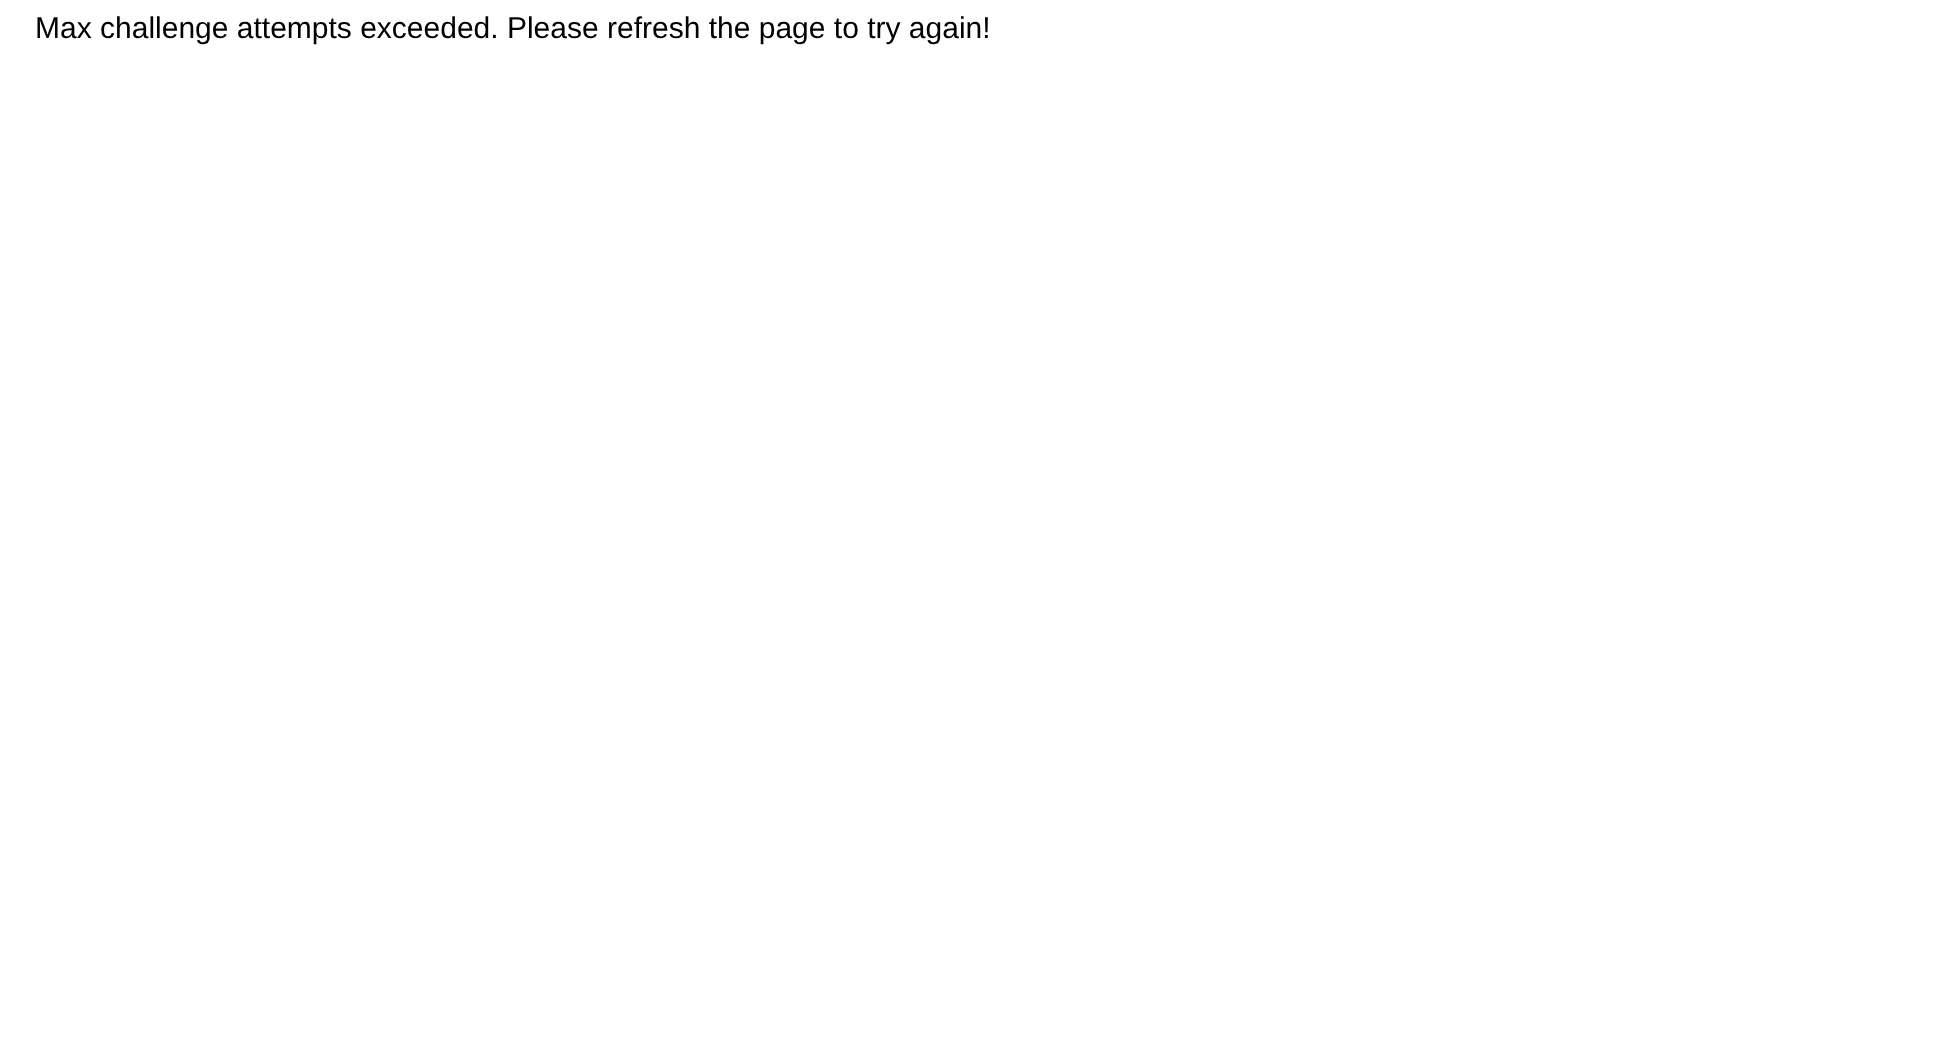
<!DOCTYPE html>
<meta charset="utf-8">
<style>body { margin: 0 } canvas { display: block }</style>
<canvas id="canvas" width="1958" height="1061"></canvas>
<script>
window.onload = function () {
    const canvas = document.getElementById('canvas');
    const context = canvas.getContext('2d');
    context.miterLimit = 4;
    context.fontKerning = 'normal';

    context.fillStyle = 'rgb(255, 255, 255)';
    context.fillRect(0, 0, 1958, 1061);
    context.font = '30px Liberation Sans';
    context.fillStyle = 'rgb(0, 0, 0)';
    context.fillText('Max challenge attempts exceeded. Please refresh the page to try again!', 35, 38);
};
</script>
